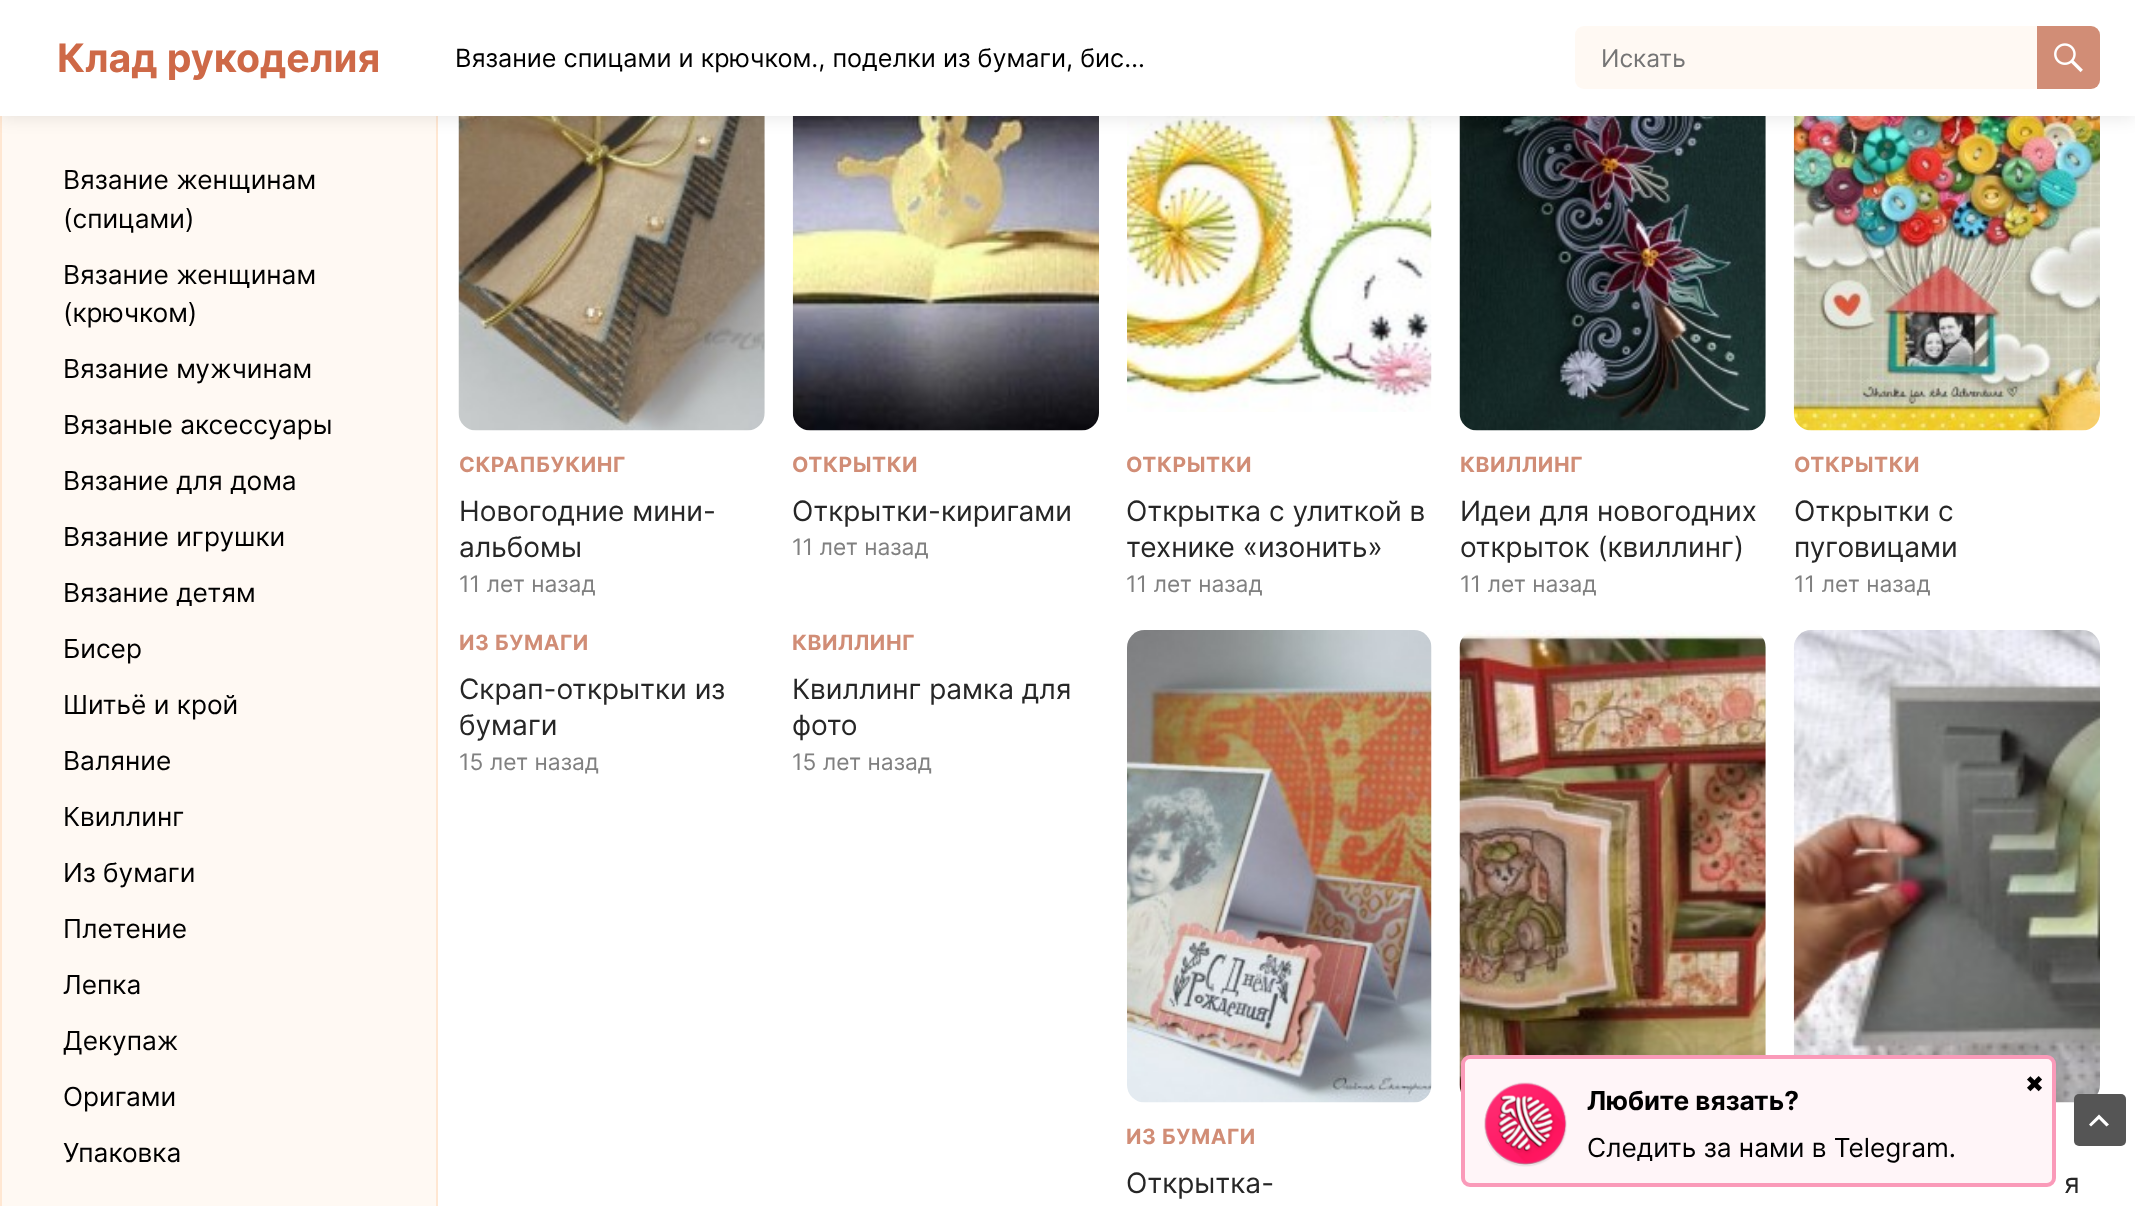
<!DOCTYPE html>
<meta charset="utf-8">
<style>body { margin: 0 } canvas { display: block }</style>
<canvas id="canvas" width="2135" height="1206"></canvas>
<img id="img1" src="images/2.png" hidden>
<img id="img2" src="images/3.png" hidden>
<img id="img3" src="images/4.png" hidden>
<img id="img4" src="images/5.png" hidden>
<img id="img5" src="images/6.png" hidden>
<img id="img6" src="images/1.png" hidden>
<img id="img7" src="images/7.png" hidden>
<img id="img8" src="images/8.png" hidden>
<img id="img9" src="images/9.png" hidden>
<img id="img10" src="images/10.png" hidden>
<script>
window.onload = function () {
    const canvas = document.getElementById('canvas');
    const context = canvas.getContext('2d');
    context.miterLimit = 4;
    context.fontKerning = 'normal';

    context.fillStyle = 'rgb(255, 255, 255)';
    context.fillRect(0, 0, 2135, 1206);
    context.fillStyle = 'rgb(255, 249, 243)';
    context.fillRect(2, 116, 434, 1090);
    context.strokeStyle = 'rgb(255, 231, 210)';
    context.lineWidth = 2;
    context.strokeRect(1, 36, 436, 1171);
    context.drawImage(document.getElementById('img1'), 458, 116, 307, 315);
    context.drawImage(document.getElementById('img2'), 792, 116, 307, 315);
    context.drawImage(document.getElementById('img3'), 1127, 116, 305, 296);
    context.drawImage(document.getElementById('img4'), 1459, 116, 307, 315);
    context.drawImage(document.getElementById('img5'), 1793, 116, 307, 315);
    context.fillStyle = 'rgba(0, 0, 0, 0.1)';
    context.filter = 'blur(9px)';
    context.beginPath();
    context.rect(0, 2, 2135, 115);
    context.fill();
    context.filter = 'none';
    context.fillStyle = 'rgb(255, 255, 255)';
    context.fillRect(0, 0, 2135, 116);
    context.fillStyle = 'rgb(255, 249, 243)';
    context.beginPath();
    context.roundRect(1575, 26, 525, 63, 9);
    context.fill();
    context.fillStyle = 'rgb(209, 141, 118)';
    context.beginPath();
    context.roundRect(2037, 26, 63, 63, [0, 9, 9, 0]);
    context.fill();
    context.drawImage(document.getElementById('img6'), 2054, 43, 29, 30);
    context.drawImage(document.getElementById('img7'), 1459, 630, 307, 462);
    context.drawImage(document.getElementById('img8'), 1127, 630, 305, 473);
    context.drawImage(document.getElementById('img9'), 1793, 630, 307, 473);
    context.fillStyle = 'rgb(255, 245, 248)';
    context.beginPath();
    context.roundRect(1463, 1057, 591, 128, 7);
    context.fill();
    context.strokeStyle = 'rgb(250, 154, 185)';
    context.lineWidth = 4;
    context.stroke();
    context.drawImage(document.getElementById('img10'), 1484, 1082, 83, 85);
    context.fillStyle = 'rgb(85, 85, 85)';
    context.beginPath();
    context.roundRect(2074, 1094, 52, 52, 5);
    context.fill();
    context.fillStyle = 'rgb(255, 255, 255)';
    context.beginPath();
    context.moveTo(2106.5, 1126.5);
    context.lineTo(2099, 1119);
    context.lineTo(2091, 1126.5);
    context.lineTo(2089, 1124.5);
    context.lineTo(2099, 1114.5);
    context.lineTo(2109, 1124.5);
    context.closePath();
    context.fill();
    context.font = 'bold 39.25px Inter';
    context.fillStyle = 'rgb(206, 105, 71)';
    context.fillText('Клад рукоделия', 57, 72);
    context.font = '25.2px Inter';
    context.fillStyle = 'rgb(0, 0, 0)';
    context.fillText('Вязание спицами и крючком., поделки из бумаги, бис…', 455, 67);
    context.font = '24.5px Inter';
    context.fillStyle = 'rgb(117, 117, 117)';
    context.fillText('Искать', 1601, 67);
    context.font = '26.25px Inter';
    context.fillStyle = 'rgb(0, 0, 0)';
    context.fillText('Вязание женщинам', 63, 189);
    context.fillText('(спицами)', 63, 228);
    context.fillText('Вязание женщинам', 63, 284);
    context.fillText('(крючком)', 63, 322);
    context.fillText('Вязание мужчинам', 63, 378);
    context.fillText('Вязаные аксессуары', 63, 434);
    context.fillText('Вязание для дома', 63, 490);
    context.fillText('Вязание игрушки', 63, 546);
    context.fillText('Вязание детям', 63, 602);
    context.fillText('Бисер', 63, 658);
    context.fillText('Шитьё и крой', 63, 714);
    context.fillText('Валяние', 63, 770);
    context.fillText('Квиллинг', 63, 826);
    context.fillText('Из бумаги', 63, 882);
    context.fillText('Плетение', 63, 938);
    context.fillText('Лепка', 63, 994);
    context.fillText('Декупаж', 63, 1050);
    context.fillText('Оригами', 63, 1106);
    context.fillText('Упаковка', 63, 1162);
    context.letterSpacing = '0.6px';
    context.font = 'bold 21px Inter';
    context.fillStyle = 'rgb(209, 141, 118)';
    context.fillText('СКРАПБУКИНГ', 459, 472);
    context.letterSpacing = '0px';
    context.font = '28px Inter';
    context.fillStyle = 'rgb(38, 38, 38)';
    context.fillText('Новогодние мини-', 459, 521);
    context.fillText('альбомы', 459, 557);
    context.font = '22.75px Inter';
    context.fillStyle = 'rgb(128, 128, 128)';
    context.fillText('11 лет назад', 459, 592);
    context.letterSpacing = '0.6px';
    context.font = 'bold 21px Inter';
    context.fillStyle = 'rgb(209, 141, 118)';
    context.fillText('ОТКРЫТКИ', 792, 472);
    context.letterSpacing = '0px';
    context.font = '28px Inter';
    context.fillStyle = 'rgb(38, 38, 38)';
    context.fillText('Открытки-киригами', 792, 521);
    context.font = '22.75px Inter';
    context.fillStyle = 'rgb(128, 128, 128)';
    context.fillText('11 лет назад', 792, 555);
    context.letterSpacing = '0.6px';
    context.font = 'bold 21px Inter';
    context.fillStyle = 'rgb(209, 141, 118)';
    context.fillText('ОТКРЫТКИ', 1126, 472);
    context.letterSpacing = '0px';
    context.font = '28px Inter';
    context.fillStyle = 'rgb(38, 38, 38)';
    context.fillText('Открытка с улиткой в', 1126, 521);
    context.fillText('технике «изонить»', 1126, 557);
    context.font = '22.75px Inter';
    context.fillStyle = 'rgb(128, 128, 128)';
    context.fillText('11 лет назад', 1126, 592);
    context.letterSpacing = '0.6px';
    context.font = 'bold 21px Inter';
    context.fillStyle = 'rgb(209, 141, 118)';
    context.fillText('КВИЛЛИНГ', 1460, 472);
    context.letterSpacing = '0px';
    context.font = '28px Inter';
    context.fillStyle = 'rgb(38, 38, 38)';
    context.fillText('Идеи для новогодних', 1460, 521);
    context.fillText('открыток (квиллинг)', 1460, 557);
    context.font = '22.75px Inter';
    context.fillStyle = 'rgb(128, 128, 128)';
    context.fillText('11 лет назад', 1460, 592);
    context.letterSpacing = '0.6px';
    context.font = 'bold 21px Inter';
    context.fillStyle = 'rgb(209, 141, 118)';
    context.fillText('ОТКРЫТКИ', 1794, 472);
    context.letterSpacing = '0px';
    context.font = '28px Inter';
    context.fillStyle = 'rgb(38, 38, 38)';
    context.fillText('Открытки с', 1794, 521);
    context.fillText('пуговицами', 1794, 557);
    context.font = '22.75px Inter';
    context.fillStyle = 'rgb(128, 128, 128)';
    context.fillText('11 лет назад', 1794, 592);
    context.letterSpacing = '0.6px';
    context.font = 'bold 21px Inter';
    context.fillStyle = 'rgb(209, 141, 118)';
    context.fillText('ИЗ БУМАГИ', 459, 650);
    context.letterSpacing = '0px';
    context.font = '28px Inter';
    context.fillStyle = 'rgb(38, 38, 38)';
    context.fillText('Скрап-открытки из', 459, 699);
    context.fillText('бумаги', 459, 735);
    context.font = '22.75px Inter';
    context.fillStyle = 'rgb(128, 128, 128)';
    context.fillText('15 лет назад', 459, 770);
    context.letterSpacing = '0.6px';
    context.font = 'bold 21px Inter';
    context.fillStyle = 'rgb(209, 141, 118)';
    context.fillText('КВИЛЛИНГ', 792, 650);
    context.letterSpacing = '0px';
    context.font = '28px Inter';
    context.fillStyle = 'rgb(38, 38, 38)';
    context.fillText('Квиллинг рамка для', 792, 699);
    context.fillText('фото', 792, 735);
    context.font = '22.75px Inter';
    context.fillStyle = 'rgb(128, 128, 128)';
    context.fillText('15 лет назад', 792, 770);
    context.letterSpacing = '0.6px';
    context.font = 'bold 21px Inter';
    context.fillStyle = 'rgb(209, 141, 118)';
    context.fillText('ИЗ БУМАГИ', 1126, 1144);
    context.letterSpacing = '0px';
    context.font = '28px Inter';
    context.fillStyle = 'rgb(38, 38, 38)';
    context.fillText('Открытка-', 1126, 1193);
    context.fillText('я', 2064, 1193);
    context.font = '22.75px DejaVu Sans';
    context.fillStyle = 'rgb(0, 0, 0)';
    context.fillText('✖', 2025, 1092);
    context.font = 'bold 26.25px Inter';
    context.fillText('Любите вязать?', 1587, 1110);
    context.font = '26.25px Inter';
    context.fillText('Cледить за нами в Telegram.', 1587, 1157);
};
</script>
